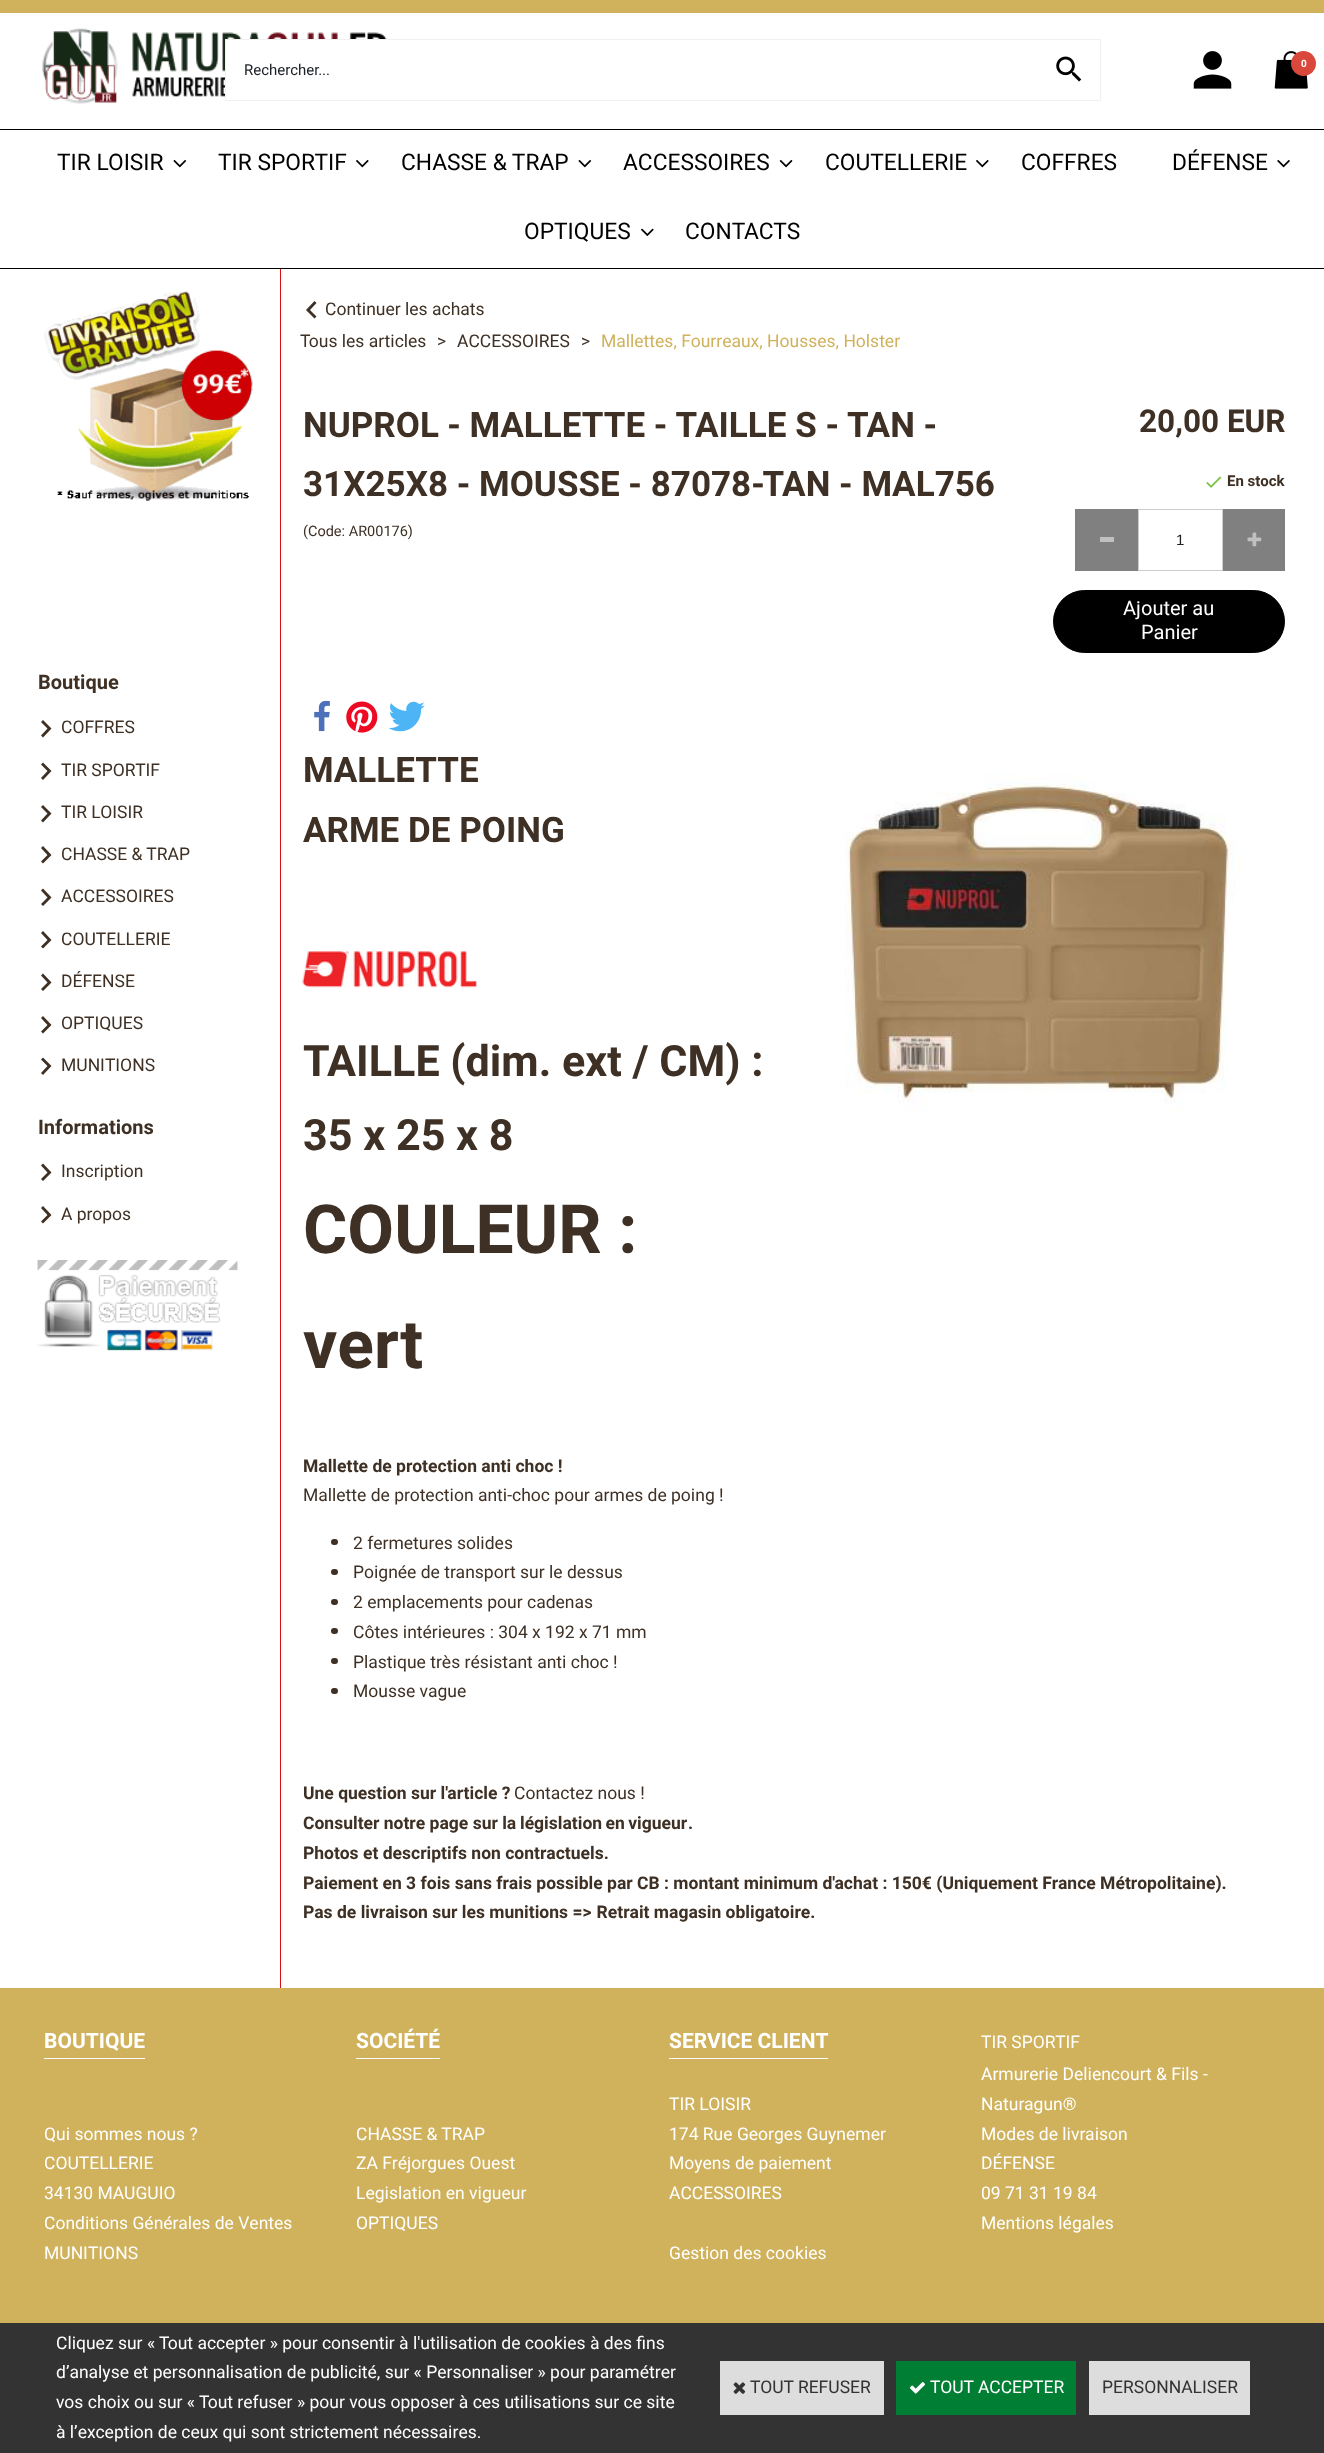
<!DOCTYPE html>
<meta charset="utf-8">
<style>body { margin: 0 } canvas { display: block }</style>
<canvas id="canvas" width="1324" height="2453"></canvas>
<img id="img1" src="images/1.png" hidden>
<img id="img2" src="images/2.png" hidden>
<img id="img3" src="images/3.png" hidden>
<img id="img4" src="images/4.png" hidden>
<img id="img5" src="images/5.png" hidden>
<img id="img6" src="images/6.png" hidden>
<img id="img7" src="images/7.png" hidden>
<img id="img8" src="images/8.png" hidden>
<img id="img9" src="images/9.png" hidden>
<img id="img10" src="images/10.png" hidden>
<img id="img11" src="images/11.png" hidden>
<img id="img12" src="images/12.png" hidden>
<img id="img13" src="images/13.png" hidden>
<img id="img14" src="images/14.png" hidden>
<img id="img15" src="images/15.png" hidden>
<img id="img16" src="images/16.png" hidden>
<img id="img17" src="images/17.png" hidden>
<img id="img18" src="images/18.png" hidden>
<img id="img19" src="images/19.png" hidden>
<img id="img20" src="images/20.png" hidden>
<script>
window.onload = function () {
    const canvas = document.getElementById('canvas');
    const context = canvas.getContext('2d');
    context.miterLimit = 4;
    context.fontKerning = 'normal';

    context.fillStyle = 'rgb(255, 255, 255)';
    context.fillRect(0, 0, 1324, 2453);
    context.fillStyle = 'rgb(208, 178, 92)';
    context.fillRect(0, 0, 1324, 13);
    context.drawImage(document.getElementById('img1'), 42, 28, 345, 76);
    context.drawImage(document.getElementById('img2'), 1193, 51, 39, 38);
    context.drawImage(document.getElementById('img3'), 1274, 51, 34, 38);
    context.fillStyle = 'rgb(217, 72, 59)';
    context.beginPath();
    context.arc(1303.5, 63.5, 12.5, 0, 2 * Math.PI);
    context.fill();
    context.fillStyle = 'rgb(255, 255, 255)';
    context.fillRect(226, 40, 161, 57);
    context.fillStyle = 'rgb(241, 241, 241)';
    context.fillRect(225, 39, 876, 1);
    context.fillRect(225, 100, 813, 1);
    context.fillRect(225, 39, 1, 62);
    context.fillRect(1100, 39, 1, 62);
    context.fillRect(1038, 100, 63, 1);
    context.drawImage(document.getElementById('img4'), 1056, 56, 26, 26);
    context.fillStyle = 'rgb(0, 0, 0)';
    context.fillRect(0, 129, 1324, 1);
    context.fillRect(0, 268, 1324, 1);
    context.drawImage(document.getElementById('img5'), 173, 160, 14, 8);
    context.drawImage(document.getElementById('img6'), 356, 160, 13, 8);
    context.drawImage(document.getElementById('img5'), 578, 160, 14, 8);
    context.drawImage(document.getElementById('img7'), 779, 160, 14, 8);
    context.drawImage(document.getElementById('img6'), 976, 160, 13, 8);
    context.drawImage(document.getElementById('img8'), 1277, 160, 13, 8);
    context.drawImage(document.getElementById('img9'), 641, 228, 13, 8);
    context.fillStyle = 'rgb(212, 17, 17)';
    context.fillRect(280, 269, 1, 1719);
    context.drawImage(document.getElementById('img10'), 44, 291, 209, 210);
    context.fillStyle = 'rgb(62, 48, 36)';
    context.beginPath();
    context.moveTo(43, 720);
    context.lineTo(41, 722);
    context.lineTo(47.5, 728.5);
    context.lineTo(41, 735.5);
    context.lineTo(43, 737.5);
    context.lineTo(51.5, 728.5);
    context.closePath();
    context.fill();
    context.beginPath();
    context.moveTo(43, 762.5);
    context.lineTo(41, 764.5);
    context.lineTo(47.5, 771);
    context.lineTo(41, 778);
    context.lineTo(43, 780);
    context.lineTo(51.5, 771);
    context.closePath();
    context.fill();
    context.beginPath();
    context.moveTo(43, 805);
    context.lineTo(41, 807);
    context.lineTo(47.5, 813.5);
    context.lineTo(41, 820.5);
    context.lineTo(43, 822.5);
    context.lineTo(51.5, 813.5);
    context.closePath();
    context.fill();
    context.beginPath();
    context.moveTo(43, 846);
    context.lineTo(41, 848);
    context.lineTo(47.5, 855);
    context.lineTo(41, 861.5);
    context.lineTo(43, 863.5);
    context.lineTo(51.5, 855);
    context.closePath();
    context.fill();
    context.beginPath();
    context.moveTo(43, 888.5);
    context.lineTo(41, 890.5);
    context.lineTo(47.5, 897.5);
    context.lineTo(41, 904);
    context.lineTo(43, 906);
    context.lineTo(51.5, 897.5);
    context.closePath();
    context.fill();
    context.beginPath();
    context.moveTo(43, 931);
    context.lineTo(41, 933);
    context.lineTo(47.5, 940);
    context.lineTo(41, 946.5);
    context.lineTo(43, 948.5);
    context.lineTo(51.5, 940);
    context.closePath();
    context.fill();
    context.beginPath();
    context.moveTo(43, 973.5);
    context.lineTo(41, 975.5);
    context.lineTo(47.5, 982.5);
    context.lineTo(41, 989);
    context.lineTo(43, 991);
    context.lineTo(51.5, 982.5);
    context.closePath();
    context.fill();
    context.beginPath();
    context.moveTo(43, 1016);
    context.lineTo(41, 1018);
    context.lineTo(47.5, 1025);
    context.lineTo(41, 1031.5);
    context.lineTo(43, 1033.5);
    context.lineTo(51.5, 1025);
    context.closePath();
    context.fill();
    context.beginPath();
    context.moveTo(43, 1057.5);
    context.lineTo(41, 1059.5);
    context.lineTo(47.5, 1066);
    context.lineTo(41, 1073);
    context.lineTo(43, 1075);
    context.lineTo(51.5, 1066);
    context.closePath();
    context.fill();
    context.beginPath();
    context.moveTo(43, 1163.5);
    context.lineTo(41, 1165.5);
    context.lineTo(47.5, 1172.5);
    context.lineTo(41, 1179);
    context.lineTo(43, 1181);
    context.lineTo(51.5, 1172.5);
    context.closePath();
    context.fill();
    context.beginPath();
    context.moveTo(43, 1206);
    context.lineTo(41, 1208);
    context.lineTo(47.5, 1215);
    context.lineTo(41, 1221.5);
    context.lineTo(43, 1223.5);
    context.lineTo(51.5, 1215);
    context.closePath();
    context.fill();
    context.drawImage(document.getElementById('img11'), 37, 1260, 201, 91);
    context.beginPath();
    context.moveTo(316.5, 316.5);
    context.lineTo(310, 310);
    context.lineTo(316.5, 303);
    context.lineTo(314.5, 301);
    context.lineTo(306, 310);
    context.lineTo(314.5, 318.5);
    context.closePath();
    context.fill();
    context.drawImage(document.getElementById('img12'), 1206, 476, 16, 12);
    context.fillStyle = 'rgb(128, 128, 128)';
    context.fillRect(1075, 509, 63, 62);
    context.fillStyle = 'rgb(192, 192, 192)';
    context.fillRect(1100, 537, 14, 5);
    context.strokeStyle = 'rgb(204, 204, 204)';
    context.strokeRect(1138.5, 509.5, 84, 61);
    context.fillStyle = 'rgb(128, 128, 128)';
    context.fillRect(1223, 509, 62, 62);
    context.drawImage(document.getElementById('img13'), 1247, 532, 15, 15);
    context.fillStyle = 'rgb(0, 0, 0)';
    context.beginPath();
    context.roundRect(1053.5, 590.5, 231, 62, 31);
    context.fill();
    context.strokeStyle = 'rgb(0, 0, 0)';
    context.stroke();
    context.drawImage(document.getElementById('img14'), 314, 700, 16, 32);
    context.drawImage(document.getElementById('img15'), 346, 701, 32, 32);
    context.drawImage(document.getElementById('img16'), 388, 701, 37, 31);
    context.drawImage(document.getElementById('img17'), 302, 950, 175, 38);
    context.fillStyle = 'rgb(62, 48, 36)';
    context.beginPath();
    context.roundRect(331, 1539, 7, 6, 3);
    context.fill();
    context.beginPath();
    context.roundRect(331, 1569, 7, 6, 3);
    context.fill();
    context.beginPath();
    context.roundRect(331, 1599, 7, 6, 3);
    context.fill();
    context.beginPath();
    context.roundRect(331, 1628, 7, 6, 3);
    context.fill();
    context.beginPath();
    context.roundRect(331, 1658, 7, 6, 3);
    context.fill();
    context.beginPath();
    context.roundRect(331, 1688, 7, 6, 3);
    context.fill();
    context.drawImage(document.getElementById('img18'), 845, 773, 396, 339);
    context.fillStyle = 'rgb(208, 178, 92)';
    context.fillRect(0, 1988, 1324, 335);
    context.fillStyle = 'rgb(255, 255, 255)';
    context.fillRect(44, 2058, 101, 1);
    context.fillRect(356, 2058, 84, 1);
    context.fillRect(669, 2058, 159, 1);
    context.fillStyle = 'rgb(51, 51, 51)';
    context.fillRect(0, 2323, 1324, 130);
    context.fillStyle = 'rgb(221, 221, 221)';
    context.fillRect(720, 2361, 164, 54);
    context.drawImage(document.getElementById('img19'), 733, 2382, 13, 12);
    context.fillStyle = 'rgb(0, 126, 51)';
    context.fillRect(896, 2361, 180, 54);
    context.drawImage(document.getElementById('img20'), 910, 2382, 15, 12);
    context.fillStyle = 'rgb(221, 221, 221)';
    context.fillRect(1089, 2361, 161, 54);
    context.font = 'bold 10px Heebo';
    context.fillStyle = 'rgb(255, 255, 255)';
    context.fillText('0', 1301, 67);
    context.font = '15px Heebo';
    context.fillStyle = 'rgb(26, 31, 38)';
    context.fillText('Rechercher...', 244, 75);
    context.font = '22.75px Heebo';
    context.fillStyle = 'rgb(0, 0, 0)';
    context.fillText('TIR LOISIR', 57, 170);
    context.fillText('TIR SPORTIF', 218, 170);
    context.fillText('CHASSE & TRAP', 401, 170);
    context.fillText('ACCESSOIRES', 623, 170);
    context.fillText('COUTELLERIE', 825, 170);
    context.fillText('COFFRES', 1021, 170);
    context.fillText('DÉFENSE', 1172, 170);
    context.fillText('OPTIQUES', 524, 239);
    context.fillText('CONTACTS', 685, 239);
    context.font = 'bold 20px Heebo';
    context.fillStyle = 'rgb(62, 48, 36)';
    context.fillText('Boutique', 38, 689);
    context.font = '17.5px Heebo';
    context.fillText('COFFRES', 61, 733);
    context.fillText('TIR SPORTIF', 61, 776);
    context.fillText('TIR LOISIR', 61, 818);
    context.fillText('CHASSE & TRAP', 61, 860);
    context.fillText('ACCESSOIRES', 61, 902);
    context.fillText('COUTELLERIE', 61, 945);
    context.fillText('DÉFENSE', 61, 987);
    context.fillText('OPTIQUES', 61, 1029);
    context.fillText('MUNITIONS', 61, 1071);
    context.font = 'bold 20px Heebo';
    context.fillText('Informations', 38, 1134);
    context.font = '17.5px Heebo';
    context.fillText('Inscription', 61, 1177);
    context.fillText('A propos', 61, 1220);
    context.fillText('Continuer les achats', 325, 315);
    context.fillText('Tous les articles', 300, 347);
    context.fillText('>', 437, 347);
    context.fillText('ACCESSOIRES', 457, 347);
    context.fillText('>', 581, 347);
    context.fillStyle = 'rgb(208, 178, 92)';
    context.fillText('Mallettes, Fourreaux, Housses, Holster', 601, 347);
    context.font = 'bold 35px Heebo';
    context.fillStyle = 'rgb(62, 48, 36)';
    context.fillText('NUPROL - MALLETTE - TAILLE S - TAN -', 303, 437);
    context.fillText('31X25X8 - MOUSSE - 87078-TAN - MAL756', 303, 496);
    context.font = '14.5px Heebo';
    context.fillText('(Code: AR00176)', 303, 536);
    context.font = 'bold 31.5px Heebo';
    context.fillText('20,00 EUR', 1139, 432);
    context.font = 'bold 15px Heebo';
    context.fillText('En stock', 1227, 486);
    context.font = '15px Liberation Sans';
    context.fillStyle = 'rgb(33, 33, 33)';
    context.fillText('1', 1176, 545);
    context.font = '20px Heebo';
    context.fillStyle = 'rgb(255, 255, 255)';
    context.fillText('Ajouter au', 1123, 615);
    context.fillText('Panier', 1141, 639);
    context.font = 'bold 35px Heebo';
    context.fillStyle = 'rgb(62, 48, 36)';
    context.fillText('MALLETTE', 303, 782);
    context.fillText('ARME DE POING', 303, 842);
    context.font = 'bold 43.1px Heebo';
    context.fillText('TAILLE (dim. ext / CM) :', 303, 1076);
    context.fillText('35 x 25 x 8', 303, 1150);
    context.font = 'bold 67.75px Heebo';
    context.fillText('COULEUR :', 303, 1253);
    context.fillText('vert', 303, 1368);
    context.font = 'bold 17.5px Heebo';
    context.fillText('Mallette de protection anti choc !', 303, 1472);
    context.font = '17.5px Heebo';
    context.fillText('Mallette de protection anti-choc pour armes de poing !', 303, 1501);
    context.fillText('2 fermetures solides', 353, 1549);
    context.fillText('Poignée de transport sur le dessus', 353, 1578);
    context.fillText('2 emplacements pour cadenas', 353, 1608);
    context.fillText('Côtes intérieures : 304 x 192 x 71 mm', 353, 1638);
    context.fillText('Plastique très résistant anti choc !', 353, 1668);
    context.fillText('Mousse vague', 353, 1697);
    context.font = 'bold 17.5px Heebo';
    context.fillText('Une question sur l\'article ?', 303, 1799);
    context.font = '17.5px Heebo';
    context.fillText('Contactez nous !', 514, 1799);
    context.font = 'bold 17.5px Heebo';
    context.fillText('Consulter notre page sur la', 303, 1829);
    context.wordSpacing = '-1px';
    context.fillText('législation en vigueur', 520, 1829);
    context.wordSpacing = '0px';
    context.fillText('.', 688, 1829);
    context.fillText('Photos et descriptifs non contractuels.', 303, 1859);
    context.fillText('Paiement en 3 fois sans frais possible par CB : montant minimum d\'achat : 150€ (Uniquement France Métropolitaine).', 303, 1889);
    context.fillText('Pas de livraison sur les munitions => Retrait magasin obligatoire.', 303, 1918);
    context.font = 'bold 21px Heebo';
    context.fillStyle = 'rgb(255, 255, 255)';
    context.fillText('BOUTIQUE', 44, 2048);
    context.fillText('SOCIÉTÉ', 356, 2048);
    context.fillText('SERVICE CLIENT', 669, 2048);
    context.font = '17.5px Heebo';
    context.fillText('TIR SPORTIF', 981, 2048);
    context.fillText('TIR LOISIR', 669, 2110);
    context.fillText('Armurerie Deliencourt & Fils -', 981, 2080);
    context.fillText('Naturagun®', 981, 2110);
    context.fillText('Qui sommes nous ?', 44, 2140);
    context.fillText('CHASSE & TRAP', 356, 2140);
    context.fillText('174 Rue Georges Guynemer', 669, 2140);
    context.fillText('Modes de livraison', 981, 2140);
    context.fillText('COUTELLERIE', 44, 2169);
    context.fillText('ZA Fréjorgues Ouest', 356, 2169);
    context.fillText('Moyens de paiement', 669, 2169);
    context.fillText('DÉFENSE', 981, 2169);
    context.fillText('34130 MAUGUIO', 44, 2199);
    context.fillText('Legislation en vigueur', 356, 2199);
    context.fillText('ACCESSOIRES', 669, 2199);
    context.fillText('09 71 31 19 84', 981, 2199);
    context.fillText('Conditions Générales de Ventes', 44, 2229);
    context.fillText('OPTIQUES', 356, 2229);
    context.fillText('Mentions légales', 981, 2229);
    context.fillText('MUNITIONS', 44, 2259);
    context.fillText('Gestion des cookies', 669, 2259);
    context.fillText('Cliquez sur « Tout accepter » pour consentir à l\'utilisation de cookies à des fins', 56, 2349);
    context.fillText('d’analyse et personnalisation de publicité, sur « Personnaliser » pour paramétrer', 56, 2378);
    context.fillText('vos choix ou sur « Tout refuser » pour vous opposer à ces utilisations sur ce site', 56, 2408);
    context.fillText('à l’exception de ceux qui sont strictement nécessaires.', 56, 2438);
    context.fillStyle = 'rgb(51, 51, 51)';
    context.fillText('TOUT REFUSER', 750, 2393);
    context.fillStyle = 'rgb(255, 255, 255)';
    context.fillText('TOUT ACCEPTER', 930, 2393);
    context.fillStyle = 'rgb(51, 51, 51)';
    context.fillText('PERSONNALISER', 1102, 2393);
};
</script>
